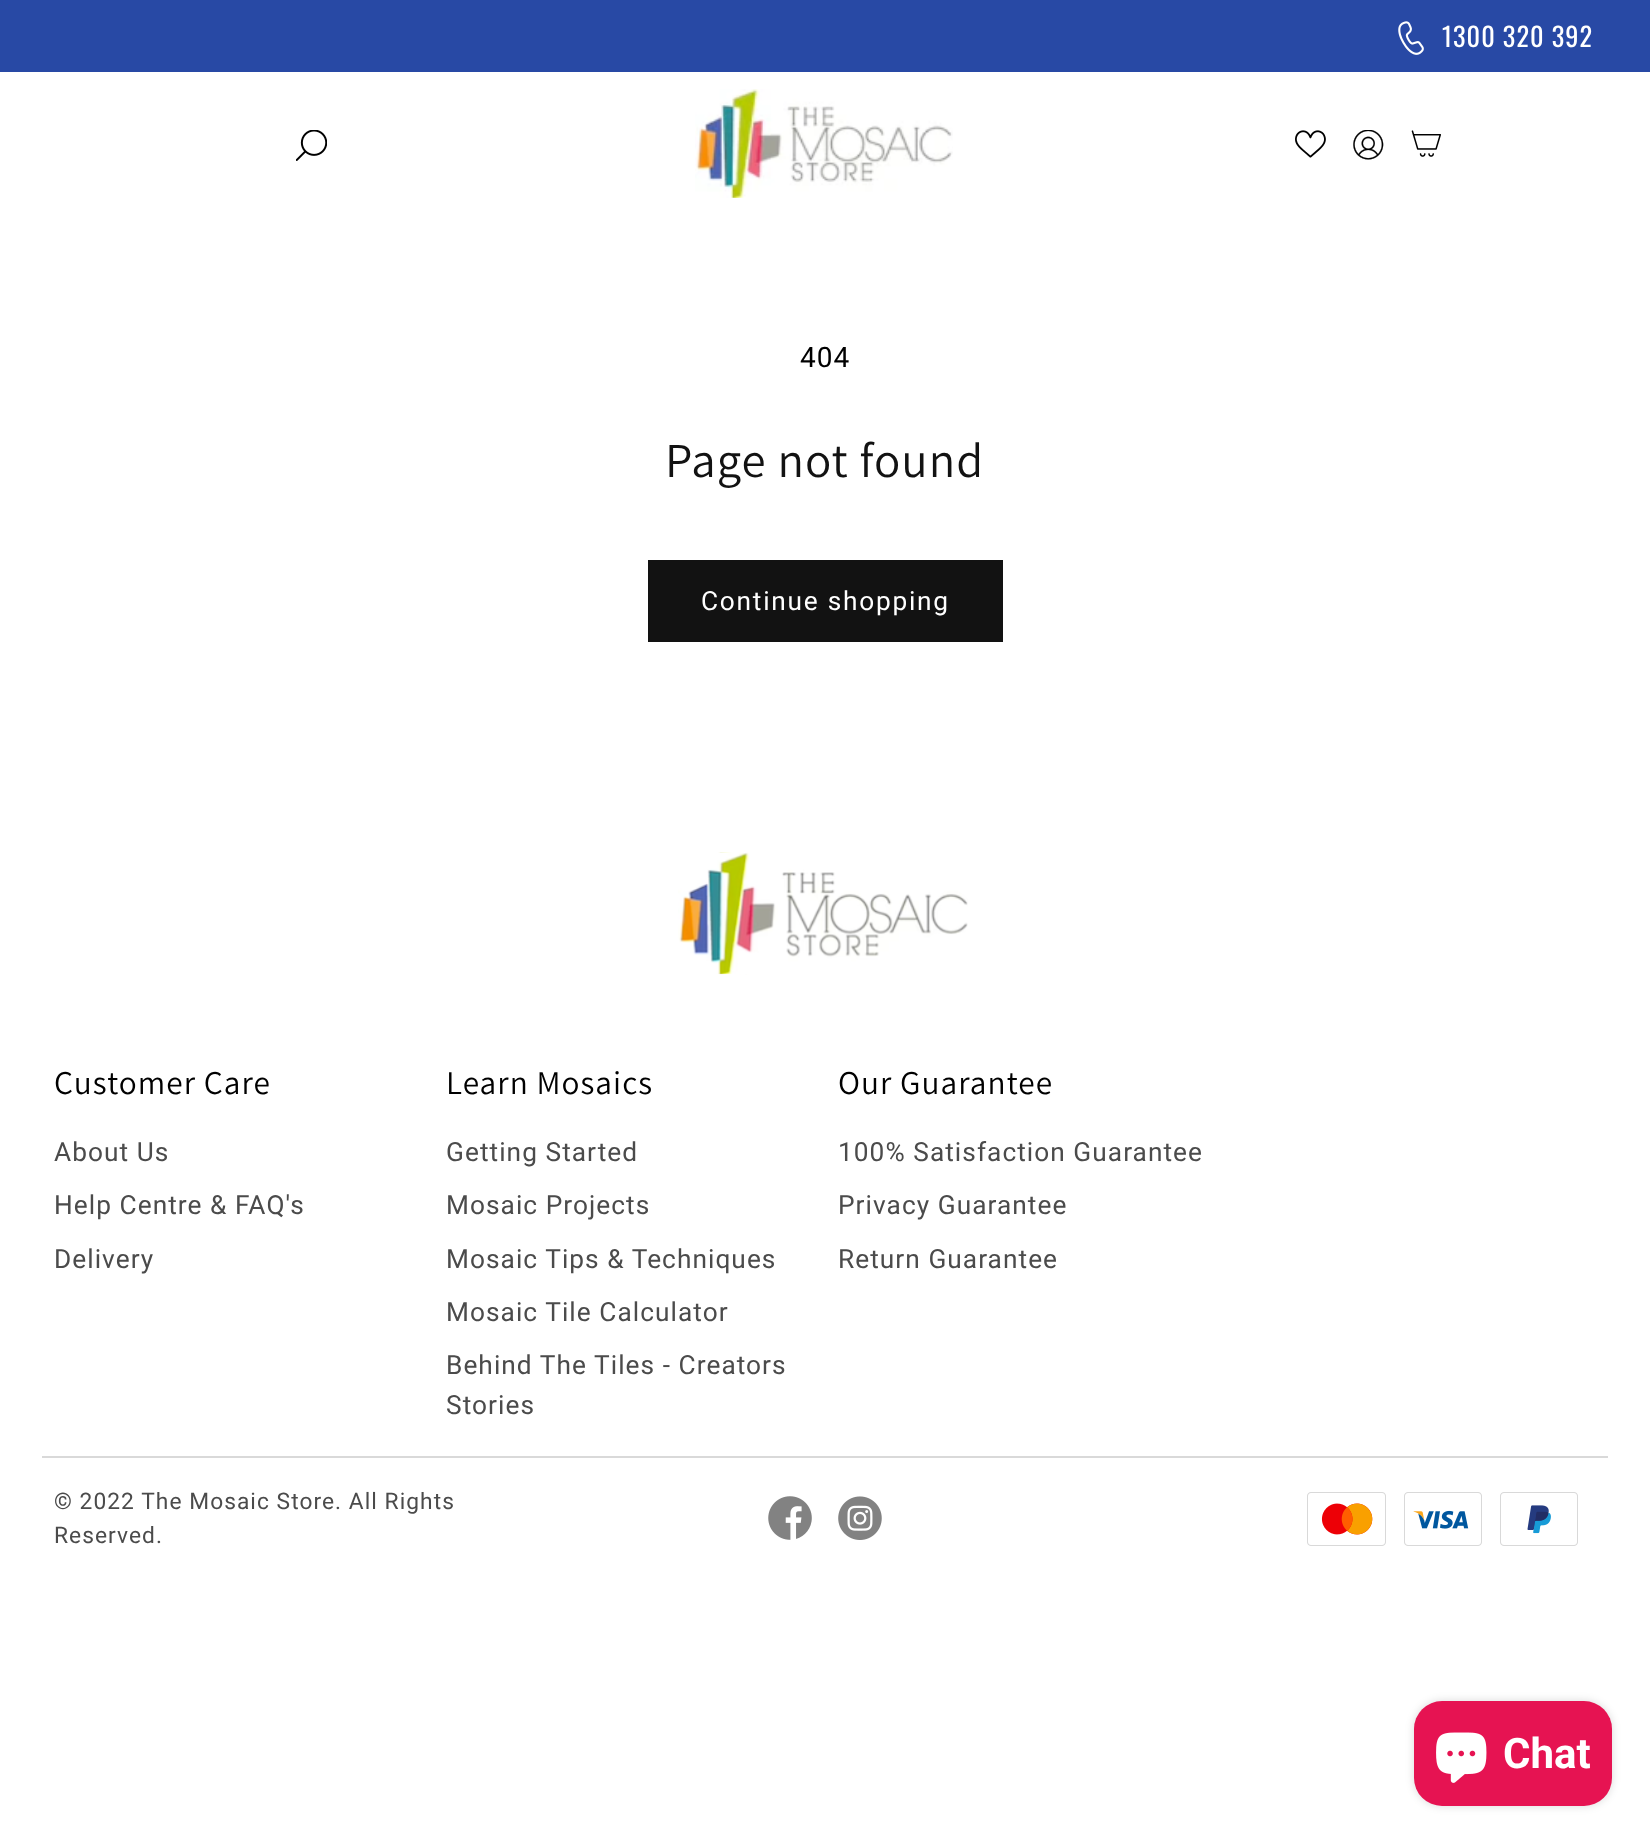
<!DOCTYPE html>
<meta charset="utf-8">
<style>body { margin: 0 } canvas { display: block }</style>
<canvas id="canvas" width="1650" height="1842"></canvas>
<img id="img1" src="images/1.png" hidden>
<img id="img2" src="images/2.png" hidden>
<img id="img3" src="images/3.png" hidden>
<img id="img4" src="images/4.png" hidden>
<img id="img5" src="images/5.png" hidden>
<img id="img6" src="images/6.png" hidden>
<img id="img7" src="images/7.png" hidden>
<img id="img8" src="images/8.png" hidden>
<img id="img9" src="images/9.png" hidden>
<img id="img10" src="images/10.png" hidden>
<img id="img11" src="images/11.png" hidden>
<img id="img12" src="images/12.png" hidden>
<img id="img13" src="images/13.png" hidden>
<script>
window.onload = function () {
    const canvas = document.getElementById('canvas');
    const context = canvas.getContext('2d');
    context.miterLimit = 4;
    context.fontKerning = 'normal';

    context.fillStyle = 'rgb(255, 255, 255)';
    context.fillRect(0, 0, 1650, 1842);
    context.fillStyle = 'rgb(40, 73, 165)';
    context.fillRect(0, 0, 1650, 72);
    context.drawImage(document.getElementById('img1'), 1398, 21, 26, 34);
    context.drawImage(document.getElementById('img2'), 296, 130, 31, 31);
    context.drawImage(document.getElementById('img3'), 695, 89, 258, 109);
    context.drawImage(document.getElementById('img4'), 1295, 130, 31, 28);
    context.drawImage(document.getElementById('img5'), 1353, 130, 31, 30);
    context.drawImage(document.getElementById('img6'), 1411, 130, 30, 27);
    context.fillStyle = 'rgb(18, 18, 18)';
    context.fillRect(648, 560, 355, 82);
    context.fillStyle = 'rgb(217, 217, 217)';
    context.fillRect(42, 1456, 1566, 2);
    context.drawImage(document.getElementById('img7'), 678, 852, 290, 123);
    context.drawImage(document.getElementById('img8'), 768, 1496, 44, 44);
    context.drawImage(document.getElementById('img9'), 838, 1496, 44, 44);
    context.drawImage(document.getElementById('img10'), 1307, 1492, 79, 54);
    context.drawImage(document.getElementById('img11'), 1404, 1492, 78, 54);
    context.drawImage(document.getElementById('img12'), 1500, 1492, 78, 54);
    context.fillStyle = 'rgba(0, 0, 0, 0.15)';
    context.filter = 'blur(4.5px)';
    context.beginPath();
    context.roundRect(1414, 1701, 198, 105, 28);
    context.fill();
    context.filter = 'none';
    context.fillStyle = 'rgb(230, 19, 82)';
    context.beginPath();
    context.roundRect(1414, 1701, 198, 105, 28);
    context.fill();
    context.drawImage(document.getElementById('img13'), 1436, 1732, 51, 51);
    context.letterSpacing = '1.05px';
    context.font = '26.25px Oswald';
    context.fillStyle = 'rgb(255, 255, 255)';
    context.fillText('1300 320 392', 1442, 47);
    context.font = '28px Roboto';
    context.fillStyle = 'rgb(0, 0, 0)';
    context.fillText('404', 800, 367);
    context.font = '48.75px Assistant';
    context.fillStyle = 'rgb(18, 18, 18)';
    context.fillText('Page not found', 665, 477);
    context.letterSpacing = '1.75px';
    context.font = '26.25px Roboto';
    context.fillStyle = 'rgb(255, 255, 255)';
    context.fillText('Continue shopping', 701, 610);
    context.letterSpacing = '1.05px';
    context.font = '33.25px Assistant';
    context.fillStyle = 'rgb(0, 0, 0)';
    context.fillText('Customer Care', 54, 1094);
    context.font = '26.25px Roboto';
    context.fillStyle = 'rgb(75, 75, 75)';
    context.fillText('About Us', 54, 1161);
    context.fillText('Help Centre & FAQ\'s', 54, 1214);
    context.fillText('Delivery', 54, 1268);
    context.font = '33.25px Assistant';
    context.fillStyle = 'rgb(0, 0, 0)';
    context.fillText('Learn Mosaics', 446, 1094);
    context.font = '26.25px Roboto';
    context.fillStyle = 'rgb(75, 75, 75)';
    context.fillText('Getting Started', 446, 1161);
    context.fillText('Mosaic Projects', 446, 1214);
    context.fillText('Mosaic Tips & Techniques', 446, 1268);
    context.fillText('Mosaic Tile Calculator', 446, 1321);
    context.fillText('Behind The Tiles - Creators', 446, 1374);
    context.fillText('Stories', 446, 1414);
    context.font = '33.25px Assistant';
    context.fillStyle = 'rgb(0, 0, 0)';
    context.fillText('Our Guarantee', 838, 1094);
    context.font = '26.25px Roboto';
    context.fillStyle = 'rgb(75, 75, 75)';
    context.fillText('100% Satisfaction Guarantee', 838, 1161);
    context.fillText('Privacy Guarantee', 838, 1214);
    context.fillText('Return Guarantee', 838, 1268);
    context.font = '22.75px Roboto';
    context.fillText('© 2022 The Mosaic Store. All Rights', 54, 1509);
    context.fillText('Reserved.', 54, 1543);
    context.letterSpacing = '0px';
    context.font = 'bold 42px Roboto';
    context.fillStyle = 'rgb(255, 255, 255)';
    context.fillText('Chat', 1503, 1768);
};
</script>
